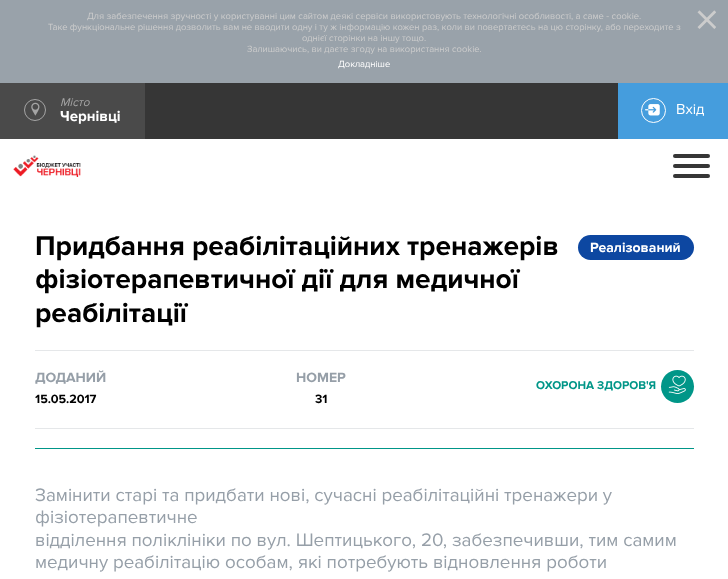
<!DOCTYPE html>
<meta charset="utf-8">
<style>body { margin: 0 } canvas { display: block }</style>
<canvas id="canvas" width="728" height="579"></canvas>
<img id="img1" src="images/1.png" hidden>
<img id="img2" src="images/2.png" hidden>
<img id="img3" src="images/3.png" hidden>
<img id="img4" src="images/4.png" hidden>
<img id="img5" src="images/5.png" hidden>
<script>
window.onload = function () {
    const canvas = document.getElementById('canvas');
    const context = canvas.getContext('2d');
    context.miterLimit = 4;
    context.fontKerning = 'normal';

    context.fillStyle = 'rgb(255, 255, 255)';
    context.fillRect(0, 0, 728, 579);
    context.fillStyle = 'rgb(153, 162, 170)';
    context.fillRect(0, 0, 728, 83);
    context.drawImage(document.getElementById('img1'), 697, 10, 19, 19);
    context.fillStyle = 'rgb(54, 54, 54)';
    context.fillRect(145, 83, 473, 56);
    context.fillStyle = 'rgb(74, 74, 74)';
    context.fillRect(0, 83, 145, 56);
    context.beginPath();
    context.arc(35, 110, 10.5, 0, 2 * Math.PI);
    context.strokeStyle = 'rgb(165, 165, 165)';
    context.stroke();
    context.drawImage(document.getElementById('img2'), 31, 102, 9, 14);
    context.fillStyle = 'rgb(69, 157, 221)';
    context.fillRect(618, 83, 110, 56);
    context.beginPath();
    context.arc(653.5, 110.5, 12, 0, 2 * Math.PI);
    context.strokeStyle = 'rgb(255, 255, 255)';
    context.stroke();
    context.drawImage(document.getElementById('img3'), 645, 104, 15, 12);
    context.drawImage(document.getElementById('img4'), 13, 155, 68, 22);
    context.fillStyle = 'rgb(54, 54, 54)';
    context.beginPath();
    context.roundRect(673, 154, 37, 4, 2);
    context.fill();
    context.beginPath();
    context.roundRect(673, 164, 37, 4, 2);
    context.fill();
    context.beginPath();
    context.roundRect(673, 174, 37, 4, 2);
    context.fill();
    context.fillStyle = 'rgb(13, 71, 161)';
    context.beginPath();
    context.roundRect(578, 235, 116, 25, 12.5);
    context.fill();
    context.fillStyle = 'rgb(229, 231, 233)';
    context.fillRect(35, 350, 659, 1);
    context.fillRect(35, 428, 659, 1);
    context.fillStyle = 'rgb(0, 150, 136)';
    context.beginPath();
    context.arc(677.5, 386.5, 16.5, 0, 2 * Math.PI);
    context.fill();
    context.drawImage(document.getElementById('img5'), 668, 375, 18, 19);
    context.fillRect(35, 448, 659, 1);
    context.font = '9.38px Proxima Nova';
    context.fillStyle = 'rgb(204, 204, 204)';
    context.fillText('Для забезпечення зручності у користуванні цим сайтом деякі сервіси використовують технологічні особливості, а саме - cookie.', 87, 19);
    context.fillText('Таке функціональне рішення дозволить вам не вводити одну і ту ж інформацію кожен раз, коли ви повертаєтесь на цю сторінку, або переходите з', 48, 30);
    context.fillText('однієї сторінки на іншу тощо.', 302, 41);
    context.fillText('Залишаючись, ви даєте згоду на використання cookie.', 247, 52);
    context.fillStyle = 'rgb(255, 255, 255)';
    context.fillText('Докладніше', 338, 67);
    context.font = 'italic 11.75px Proxima Nova';
    context.fillStyle = 'rgb(165, 165, 165)';
    context.fillText('Місто', 60, 106);
    context.font = 'bold 15px Proxima Nova';
    context.fillStyle = 'rgb(255, 255, 255)';
    context.fillText('Чернівці', 60, 121);
    context.font = '15px Proxima Nova';
    context.fillText('Вхід', 676, 114);
    context.font = 'bold 28.1px Proxima Nova';
    context.fillStyle = 'rgb(0, 0, 0)';
    context.fillText('Придбання реабілітаційних тренажерів', 35, 255);
    context.fillText('фізіотерапевтичної дії для медичної', 35, 288);
    context.fillText('реабілітації', 35, 322);
    context.font = 'bold 14px Proxima Nova';
    context.fillStyle = 'rgb(255, 255, 255)';
    context.fillText('Реалізований', 590, 252);
    context.fillStyle = 'rgb(150, 159, 168)';
    context.fillText('ДОДАНИЙ', 35, 382);
    context.font = 'bold 12.5px Proxima Nova';
    context.fillStyle = 'rgb(0, 0, 0)';
    context.fillText('15.05.2017', 35, 403);
    context.font = 'bold 14px Proxima Nova';
    context.fillStyle = 'rgb(150, 159, 168)';
    context.fillText('НОМЕР', 296, 382);
    context.font = 'bold 12.5px Proxima Nova';
    context.fillStyle = 'rgb(0, 0, 0)';
    context.fillText('31', 315, 403);
    context.font = 'bold 11.75px Proxima Nova';
    context.fillStyle = 'rgb(0, 150, 136)';
    context.fillText('ОХОРОНА ЗДОРОВ\'Я', 536, 389);
    context.font = '18.75px Proxima Nova';
    context.fillStyle = 'rgb(150, 159, 168)';
    context.fillText('Замінити старі та придбати нові, сучасні реабілітаційні тренажери у', 35, 501);
    context.fillText('фізіотерапевтичне', 35, 523);
    context.fillText('відділення поліклініки по вул. Шептицького, 20, забезпечивши, тим самим', 35, 546);
    context.fillText('медичну реабілітацію особам, які потребують відновлення роботи', 35, 568);
};
</script>
